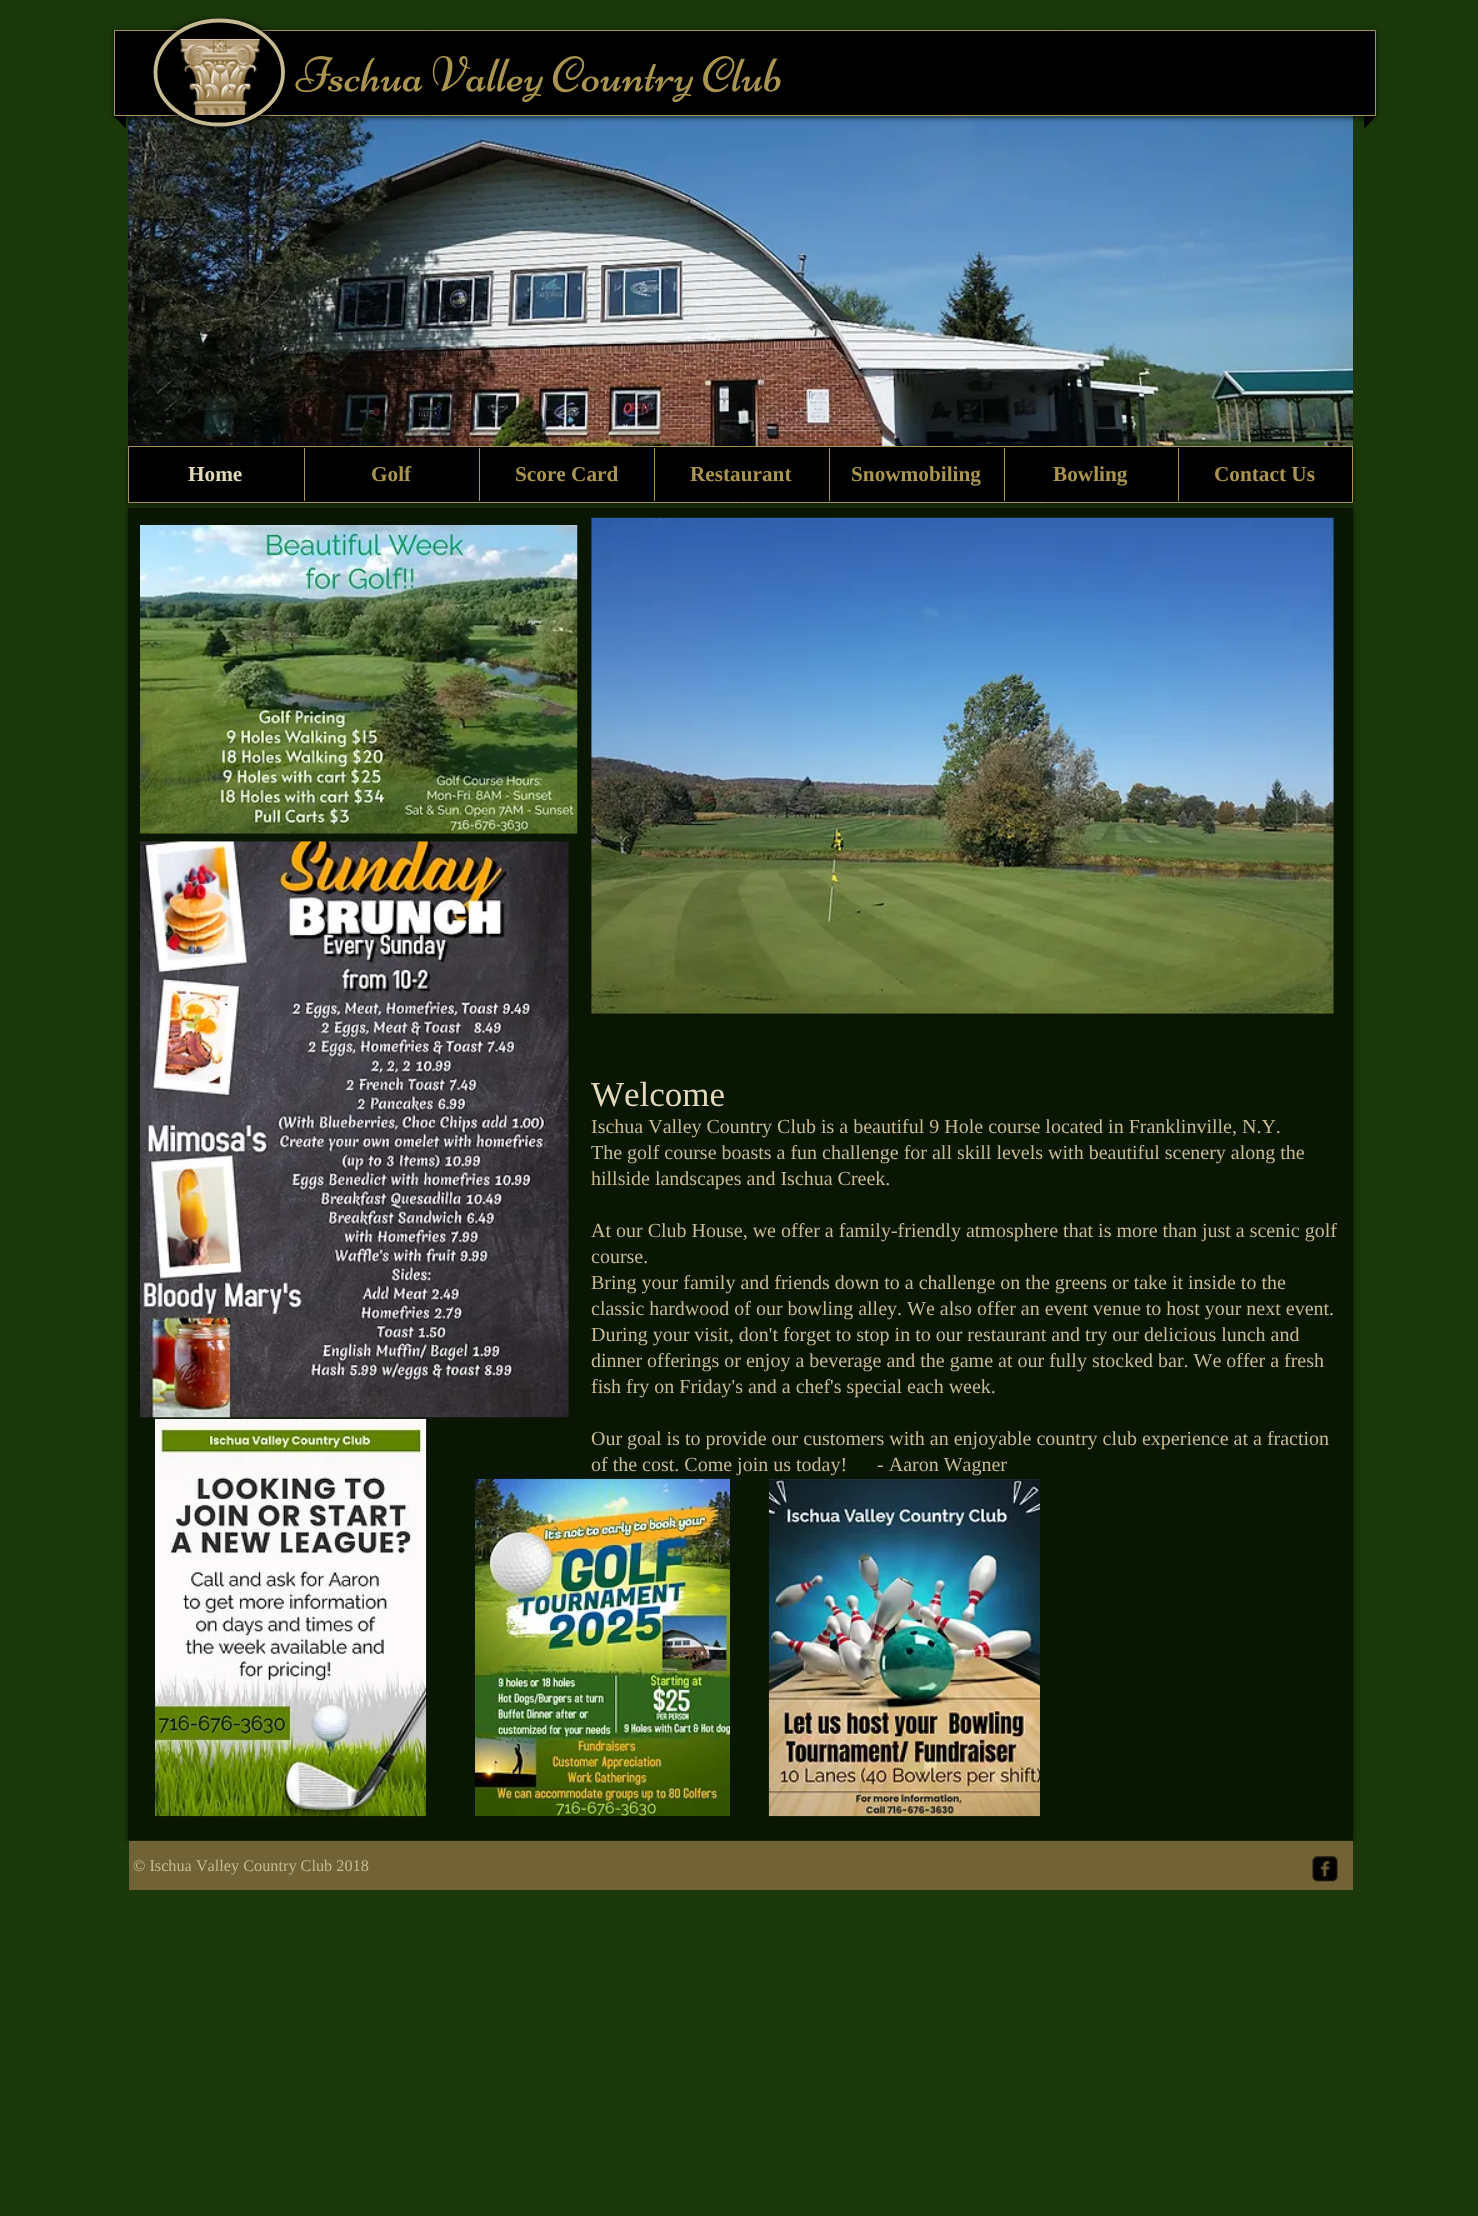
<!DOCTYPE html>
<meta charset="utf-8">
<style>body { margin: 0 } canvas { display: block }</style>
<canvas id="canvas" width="1478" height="2216"></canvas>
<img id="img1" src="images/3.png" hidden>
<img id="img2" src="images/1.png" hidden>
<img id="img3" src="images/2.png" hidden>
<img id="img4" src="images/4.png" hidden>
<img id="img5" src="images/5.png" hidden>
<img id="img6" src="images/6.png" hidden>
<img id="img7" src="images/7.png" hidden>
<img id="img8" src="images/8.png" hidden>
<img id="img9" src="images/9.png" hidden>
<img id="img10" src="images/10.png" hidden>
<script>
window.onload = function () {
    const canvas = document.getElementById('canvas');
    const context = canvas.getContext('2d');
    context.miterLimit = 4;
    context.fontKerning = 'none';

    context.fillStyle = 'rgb(26, 56, 10)';
    context.fillRect(0, 0, 1478, 2216);
    context.fillStyle = 'rgb(0, 0, 0)';
    context.beginPath();
    context.moveTo(114, 116);
    context.lineTo(126, 116);
    context.lineTo(126, 129);
    context.closePath();
    context.fill();
    context.beginPath();
    context.moveTo(1364, 116);
    context.lineTo(1376, 116);
    context.lineTo(1364, 129);
    context.closePath();
    context.fill();
    context.drawImage(document.getElementById('img1'), 128, 116, 1225, 330);
    context.fillStyle = 'rgba(0, 0, 0, 0.6)';
    context.filter = 'blur(2.5px)';
    context.beginPath();
    context.rect(114, 31, 1262, 87);
    context.fill();
    context.filter = 'none';
    context.fillStyle = 'rgb(0, 0, 0)';
    context.beginPath();
    context.rect(114.5, 30.5, 1261, 85);
    context.fill();
    context.strokeStyle = 'rgb(170, 149, 80)';
    context.stroke();
    context.fillStyle = 'rgba(0, 0, 0, 0.6)';
    context.filter = 'blur(2.5px)';
    context.beginPath();
    context.roundRect(154, 20, 131, 108, 54);
    context.fill();
    context.filter = 'none';
    context.fillStyle = 'rgb(0, 0, 0)';
    context.beginPath();
    context.ellipse(219.5, 72.5, 65.5, 54, 0, 0, 2 * Math.PI);
    context.fill();
    context.beginPath();
    context.moveTo(219.5, 20.5);
    context.bezierCurveTo(254.5, 20.5, 283, 44, 283, 72.5);
    context.bezierCurveTo(283, 101, 254.5, 124.5, 219.5, 124.5);
    context.bezierCurveTo(184, 124.5, 155.5, 101, 155.5, 72.5);
    context.bezierCurveTo(155.5, 44, 184, 20.5, 219.5, 20.5);
    context.closePath();
    context.strokeStyle = 'rgb(198, 186, 146)';
    context.lineWidth = 3.8;
    context.stroke();
    context.drawImage(document.getElementById('img2'), 180, 38, 80, 77);
    context.drawImage(document.getElementById('img3'), 295, 56, 486, 47);
    context.fillStyle = 'rgba(0, 0, 0, 0.6)';
    context.filter = 'blur(2.5px)';
    context.beginPath();
    context.rect(128, 448, 1225, 56);
    context.fill();
    context.filter = 'none';
    context.fillStyle = 'rgb(0, 0, 0)';
    context.beginPath();
    context.rect(128.5, 446.5, 1224, 56);
    context.fill();
    context.strokeStyle = 'rgb(170, 149, 80)';
    context.lineWidth = 1;
    context.stroke();
    context.fillStyle = 'rgb(170, 149, 80)';
    context.fillRect(304, 448, 1, 53);
    context.fillRect(479, 448, 1, 53);
    context.fillRect(654, 448, 1, 53);
    context.fillRect(829, 448, 1, 53);
    context.fillRect(1004, 448, 1, 53);
    context.fillRect(1178, 448, 1, 53);
    context.save();
    context.beginPath();
    context.moveTo(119, 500);
    context.lineTo(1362, 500);
    context.lineTo(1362, 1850);
    context.lineTo(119, 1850);
    context.closePath();
    context.moveTo(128, 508);
    context.lineTo(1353, 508);
    context.lineTo(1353, 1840);
    context.lineTo(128, 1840);
    context.closePath();
    context.clip('evenodd');
    context.fillStyle = 'rgba(0, 0, 0, 0.6)';
    context.filter = 'blur(2.5px)';
    context.beginPath();
    context.rect(128, 509, 1225, 1332);
    context.fill();
    context.filter = 'none';
    context.restore();
    context.fillStyle = 'rgba(0, 0, 0, 0.6)';
    context.fillRect(128, 508, 1225, 1332);
    context.drawImage(document.getElementById('img4'), 140, 525, 438, 309);
    context.drawImage(document.getElementById('img5'), 591, 517, 743, 497);
    context.drawImage(document.getElementById('img6'), 140, 841, 429, 577);
    context.drawImage(document.getElementById('img7'), 155, 1418, 272, 399);
    context.drawImage(document.getElementById('img8'), 475, 1478, 255, 339);
    context.drawImage(document.getElementById('img9'), 768, 1479, 272, 338);
    context.fillStyle = 'rgb(113, 99, 53)';
    context.fillRect(129, 1841, 1224, 49);
    context.drawImage(document.getElementById('img10'), 1312, 1856, 26, 26);
    context.font = 'bold 21.25px Liberation Serif';
    context.fillStyle = 'rgb(226, 217, 186)';
    context.fillText('Home', 188, 481);
    context.fillStyle = 'rgb(170, 149, 80)';
    context.fillText('Golf', 371, 481);
    context.fillText('Score Card', 515, 481);
    context.fillText('Restaurant', 690, 481);
    context.fillText('Snowmobiling', 851, 481);
    context.fillText('Bowling', 1053, 481);
    context.fillText('Contact Us', 1214, 481);
    context.font = '35px Liberation Serif';
    context.fillStyle = 'rgb(226, 217, 186)';
    context.fillText('Welcome', 591, 1106);
    context.font = '20px Liberation Serif';
    context.fillStyle = 'rgb(198, 186, 146)';
    context.fillText('Ischua Valley Country Club is a beautiful 9 Hole course located in Franklinville, N.Y.', 591, 1133);
    context.fillText('The golf course boasts a fun challenge for all skill levels with beautiful scenery along the', 591, 1159);
    context.fillText('hillside landscapes and Ischua Creek.', 591, 1185);
    context.fillText('At our Club House, we offer a family-friendly atmosphere that is more than just a scenic golf', 591, 1237);
    context.fillText('course.', 591, 1263);
    context.fillText('Bring your family and friends down to a challenge on the greens or take it inside to the', 591, 1289);
    context.fillText('classic hardwood of our bowling alley. We also offer an event venue to host your next event.', 591, 1315);
    context.fillText('During your visit, don\'t forget to stop in to our restaurant and try our delicious lunch and', 591, 1341);
    context.fillText('dinner offerings or enjoy a beverage and the game at our fully stocked bar. We offer a fresh', 591, 1367);
    context.fillText('fish fry on Friday\'s and a chef\'s special each week.', 591, 1393);
    context.fillText('Our goal is to provide our customers with an enjoyable country club experience at a fraction', 591, 1445);
    context.fillText('of the cost. Come join us today!      - Aaron Wagner', 591, 1471);
    context.font = '16.25px Liberation Serif';
    context.fillText('© Ischua Valley Country Club 2018', 133, 1871);
};
</script>
